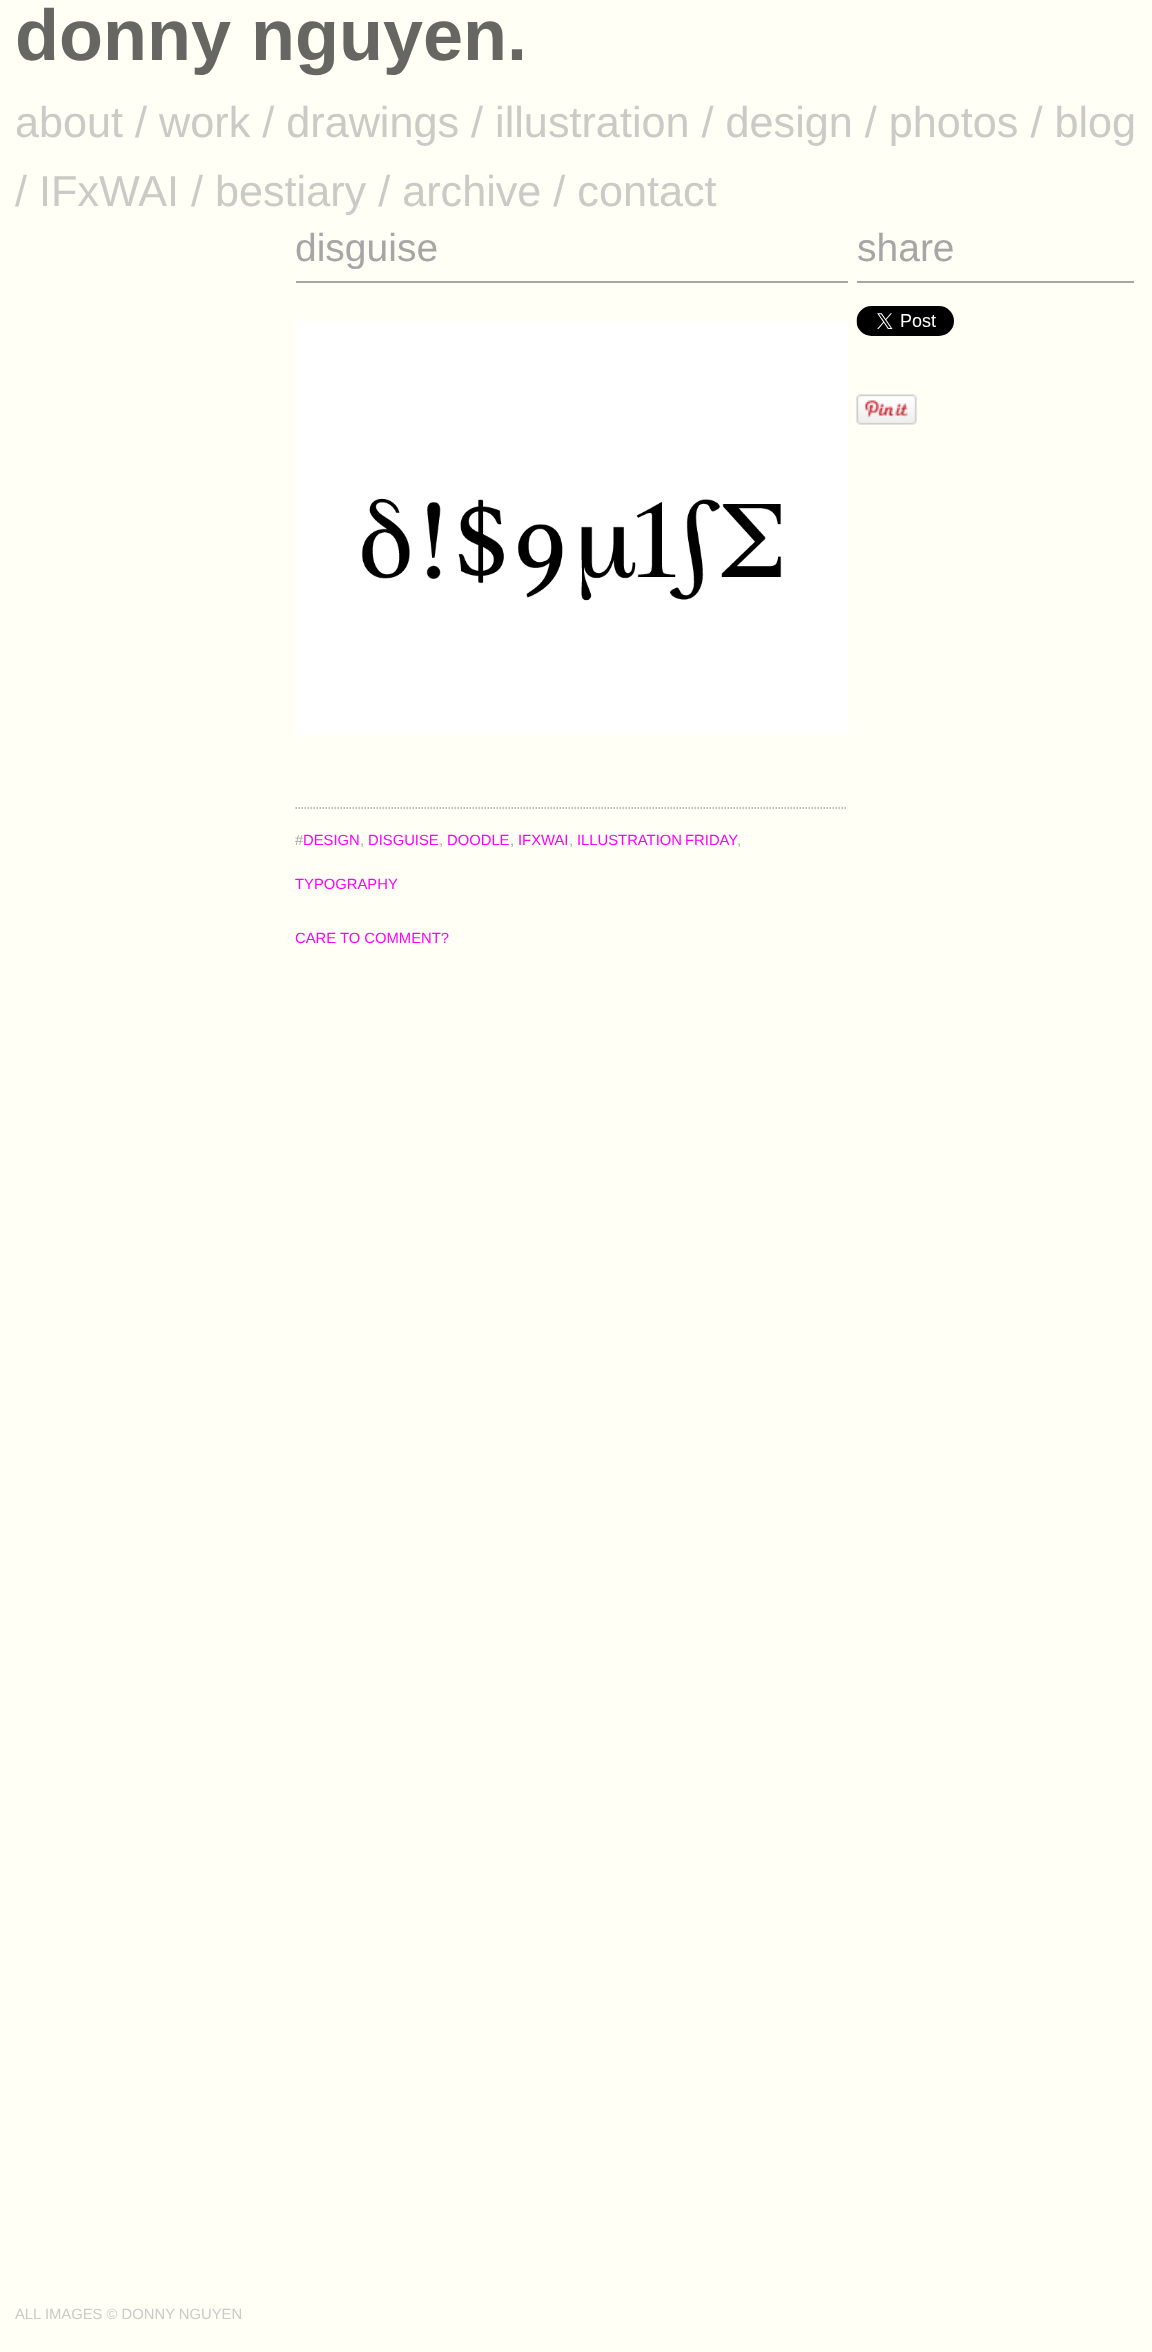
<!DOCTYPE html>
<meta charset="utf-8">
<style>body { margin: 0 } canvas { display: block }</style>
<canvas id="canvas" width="1152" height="2352"></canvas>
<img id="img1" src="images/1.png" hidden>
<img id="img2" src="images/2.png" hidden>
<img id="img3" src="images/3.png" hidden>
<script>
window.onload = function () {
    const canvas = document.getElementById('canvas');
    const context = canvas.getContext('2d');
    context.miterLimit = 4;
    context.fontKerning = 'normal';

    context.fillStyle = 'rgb(255, 255, 246)';
    context.fillRect(0, 0, 1152, 2352);
    context.fillStyle = 'rgb(166, 166, 166)';
    context.fillRect(296, 281, 552, 2);
    context.drawImage(document.getElementById('img1'), 295, 321, 553, 414);
    context.beginPath();
    context.moveTo(295.5, 808);
    context.lineTo(847.5, 808);
    context.strokeStyle = 'rgb(166, 166, 166)';
    context.lineWidth = 1.5;
    context.setLineDash([1.5, 1.5]);
    context.stroke();
    context.fillRect(857, 281, 277, 2);
    context.drawImage(document.getElementById('img2'), 856, 306, 98, 30);
    context.drawImage(document.getElementById('img3'), 856, 394, 61, 31);
    context.font = 'bold 72px Liberation Sans';
    context.fillStyle = 'rgb(102, 102, 98)';
    context.fillText('donny nguyen.', 15, 60);
    context.font = '43.2px Liberation Sans';
    context.fillStyle = 'rgb(202, 202, 198)';
    context.fillText('about / work / drawings / illustration / design / photos / blog', 15, 137);
    context.fillText('/ IFxWAI / bestiary / archive / contact', 15, 206);
    context.font = '39px Liberation Sans';
    context.fillStyle = 'rgb(166, 166, 166)';
    context.fillText('disguise', 295, 261);
    context.font = '14.8px Liberation Sans';
    context.fillText('#', 295, 845);
    context.fillStyle = 'rgb(255, 0, 255)';
    context.fillText('DESIGN', 303, 845);
    context.fillStyle = 'rgb(166, 166, 166)';
    context.fillText(',', 360, 845);
    context.fillStyle = 'rgb(255, 0, 255)';
    context.fillText('DISGUISE', 368, 845);
    context.fillStyle = 'rgb(166, 166, 166)';
    context.fillText(',', 439, 845);
    context.fillStyle = 'rgb(255, 0, 255)';
    context.fillText('DOODLE', 447, 845);
    context.fillStyle = 'rgb(166, 166, 166)';
    context.fillText(',', 510, 845);
    context.fillStyle = 'rgb(255, 0, 255)';
    context.fillText('IFXWAI', 518, 845);
    context.fillStyle = 'rgb(166, 166, 166)';
    context.fillText(',', 569, 845);
    context.wordSpacing = '-1px';
    context.fillStyle = 'rgb(255, 0, 255)';
    context.fillText('ILLUSTRATION FRIDAY', 577, 845);
    context.wordSpacing = '0px';
    context.fillStyle = 'rgb(166, 166, 166)';
    context.fillText(',', 737, 845);
    context.fillStyle = 'rgb(255, 0, 255)';
    context.fillText('TYPOGRAPHY', 295, 889);
    context.fillText('CARE TO COMMENT?', 295, 943);
    context.font = '39px Liberation Sans';
    context.fillStyle = 'rgb(166, 166, 166)';
    context.fillText('share', 857, 261);
    context.font = '14.8px Liberation Sans';
    context.fillStyle = 'rgb(202, 202, 198)';
    context.fillText('ALL IMAGES © DONNY NGUYEN', 15, 2319);
};
</script>
